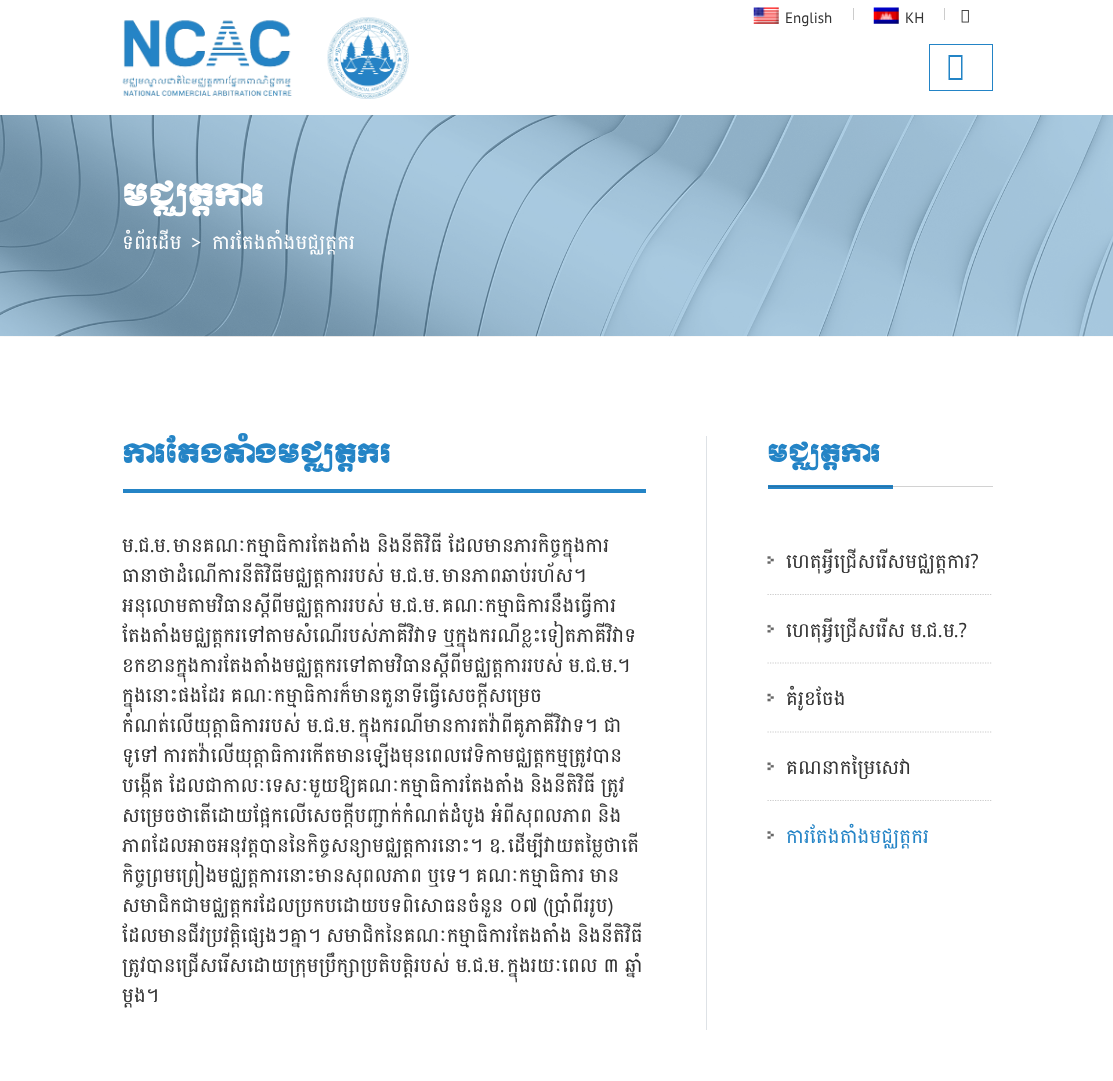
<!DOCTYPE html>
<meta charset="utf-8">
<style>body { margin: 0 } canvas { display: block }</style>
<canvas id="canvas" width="1113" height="1081"></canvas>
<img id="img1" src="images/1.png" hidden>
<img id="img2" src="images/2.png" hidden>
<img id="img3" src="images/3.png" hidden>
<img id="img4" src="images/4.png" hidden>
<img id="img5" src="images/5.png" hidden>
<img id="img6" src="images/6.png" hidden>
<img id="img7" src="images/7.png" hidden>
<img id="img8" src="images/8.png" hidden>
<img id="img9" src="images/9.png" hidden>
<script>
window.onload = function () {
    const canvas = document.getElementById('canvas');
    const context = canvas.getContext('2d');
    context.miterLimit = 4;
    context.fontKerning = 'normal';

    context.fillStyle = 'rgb(255, 255, 255)';
    context.fillRect(0, 0, 1113, 1081);
    context.fillStyle = 'rgb(210, 210, 210)';
    context.fillRect(893, 486, 100, 1);
    context.drawImage(document.getElementById('img1'), 753, 7, 26, 17);
    context.fillStyle = 'rgb(204, 204, 204)';
    context.fillRect(853, 8, 1, 12);
    context.drawImage(document.getElementById('img2'), 873, 7, 26, 17);
    context.fillRect(944, 8, 1, 12);
    context.drawImage(document.getElementById('img3'), 961, 10, 8, 13);
    context.drawImage(document.getElementById('img4'), 122, 17, 287, 82);
    context.strokeStyle = 'rgb(35, 132, 198)';
    context.strokeRect(929.5, 44.5, 63, 46);
    context.fillStyle = 'rgb(35, 132, 198)';
    context.beginPath();
    context.moveTo(948.5, 80);
    context.lineTo(948.5, 55);
    context.lineTo(962.5, 55);
    context.lineTo(962.5, 80);
    context.closePath();
    context.moveTo(950, 78);
    context.lineTo(961, 78);
    context.lineTo(961, 57);
    context.lineTo(950, 57);
    context.closePath();
    context.fill();
    context.drawImage(document.getElementById('img5'), 0, 115, 1113, 222);
    context.fillStyle = 'rgb(222, 226, 230)';
    context.fillRect(706, 436, 1, 594);
    context.fillStyle = 'rgb(36, 132, 198)';
    context.fillRect(123, 489, 523, 4);
    context.fillRect(768, 485, 125, 4);
    context.fillStyle = 'rgb(39, 114, 166)';
    context.fillRect(768, 486, 125, 1);
    context.beginPath();
    context.moveTo(767.5, 594.5);
    context.lineTo(992.5, 594.5);
    context.strokeStyle = 'rgb(204, 204, 204)';
    context.lineWidth = 1.2;
    context.setLineDash([1.25, 1.25]);
    context.stroke();
    context.drawImage(document.getElementById('img6'), 767, 556, 7, 8);
    context.beginPath();
    context.moveTo(767.5, 663);
    context.lineTo(992.5, 663);
    context.stroke();
    context.drawImage(document.getElementById('img7'), 767, 624, 7, 9);
    context.beginPath();
    context.moveTo(767.5, 732);
    context.lineTo(992.5, 732);
    context.stroke();
    context.drawImage(document.getElementById('img8'), 767, 693, 7, 9);
    context.beginPath();
    context.moveTo(767.5, 800.5);
    context.lineTo(992.5, 800.5);
    context.stroke();
    context.drawImage(document.getElementById('img9'), 767, 762, 7, 9);
    context.drawImage(document.getElementById('img6'), 767, 831, 7, 8);
    context.font = '15px PT Sans';
    context.fillStyle = 'rgb(51, 51, 51)';
    context.fillText('English', 785, 23);
    context.fillText('KH', 905, 23);
    context.font = 'bold 30px Moul';
    context.fillStyle = 'rgb(255, 255, 255)';
    context.fillText('មជ្ឈត្តការ', 122, 206);
    context.font = '20px Battambang';
    context.fillText('ទំព័រដើម', 122, 249);
    context.font = '20px PT Sans';
    context.fillText('>', 191, 249);
    context.font = '20px Battambang';
    context.fillText('ការតែងតាំងមជ្ឈត្តករ', 212, 249);
    context.font = 'bold 26px Moul';
    context.fillStyle = 'rgb(36, 132, 198)';
    context.fillText('ការតែងតាំងមជ្ឈត្តករ', 122, 463);
    context.font = '20px Battambang';
    context.fillStyle = 'rgb(51, 51, 51)';
    context.fillText('ម', 122, 552);
    context.font = '20px PT Sans';
    context.fillText('.', 134, 552);
    context.font = '20px Battambang';
    context.fillText('ជ', 138, 552);
    context.font = '20px PT Sans';
    context.fillText('.', 150, 552);
    context.font = '20px Battambang';
    context.fillText('ម', 154, 552);
    context.font = '20px PT Sans';
    context.fillText('.', 166, 552);
    context.wordSpacing = '-1px';
    context.font = '20px Battambang';
    context.fillText('មានគណៈកម្មាធិការតែងតាំង និងនីតិវិធី ដែលមានភារកិច្ចក្នុងការ', 173, 552);
    context.fillText('ធានាថាដំណើការនីតិវិធីមជ្ឈត្តការរបស់ ម', 122, 582);
    context.wordSpacing = '0px';
    context.font = '20px PT Sans';
    context.fillText('.', 402, 582);
    context.font = '20px Battambang';
    context.fillText('ជ', 406, 582);
    context.font = '20px PT Sans';
    context.fillText('.', 418, 582);
    context.font = '20px Battambang';
    context.fillText('ម', 423, 582);
    context.font = '20px PT Sans';
    context.fillText('.', 435, 582);
    context.font = '20px Battambang';
    context.fillText('មានភាពឆាប់រហ័ស។', 442, 582);
    context.wordSpacing = '-1px';
    context.fillText('អនុលោមតាមវិធានស្ដីពីមជ្ឈត្តការរបស់ ម', 122, 612);
    context.wordSpacing = '0px';
    context.font = '20px PT Sans';
    context.fillText('.', 402, 612);
    context.font = '20px Battambang';
    context.fillText('ជ', 406, 612);
    context.font = '20px PT Sans';
    context.fillText('.', 418, 612);
    context.font = '20px Battambang';
    context.fillText('ម', 423, 612);
    context.font = '20px PT Sans';
    context.fillText('.', 435, 612);
    context.font = '20px Battambang';
    context.fillText('គណៈកម្មាធិការនឹងធ្វើការ', 442, 612);
    context.wordSpacing = '-1.5px';
    context.fillText('តែងតាំងមជ្ឈត្តករទៅតាមសំណើរបស់ភាគីវិវាទ ឬក្នុងករណីខ្លះទៀតភាគីវិវាទ', 122, 642);
    context.fillText('ខកខានក្នុងការតែងតាំងមជ្ឈត្តករទៅតាមវិធានស្ដីពីមជ្ឈត្តការរបស់ ម', 122, 672);
    context.wordSpacing = '0px';
    context.font = '20px PT Sans';
    context.fillText('.', 580, 672);
    context.font = '20px Battambang';
    context.fillText('ជ', 585, 672);
    context.font = '20px PT Sans';
    context.fillText('.', 596, 672);
    context.font = '20px Battambang';
    context.fillText('ម', 601, 672);
    context.font = '20px PT Sans';
    context.fillText('.', 613, 672);
    context.font = '20px Battambang';
    context.fillText('។', 617, 672);
    context.wordSpacing = '-1.5px';
    context.fillText('ក្នុងនោះផងដែរ គណៈកម្មាធិការក៏មានតួនាទីធ្វើសេចក្ដីសម្រេច', 122, 702);
    context.wordSpacing = '-1px';
    context.fillText('កំណត់លើយុត្តាធិការរបស់ ម', 122, 732);
    context.wordSpacing = '0px';
    context.font = '20px PT Sans';
    context.fillText('.', 318, 732);
    context.font = '20px Battambang';
    context.fillText('ជ', 323, 732);
    context.font = '20px PT Sans';
    context.fillText('.', 335, 732);
    context.font = '20px Battambang';
    context.fillText('ម', 339, 732);
    context.font = '20px PT Sans';
    context.fillText('.', 351, 732);
    context.wordSpacing = '-1px';
    context.font = '20px Battambang';
    context.fillText('ក្នុងករណីមានការតវ៉ាពីគូភាគីវិវាទ។ ជា', 358, 732);
    context.wordSpacing = '-1.5px';
    context.fillText('ទូទៅ ការតវ៉ាលើយុត្តាធិការកើតមានឡើងមុនពេលវេទិកាមជ្ឈត្តកម្មត្រូវបាន', 122, 762);
    context.fillText('បង្កើត ដែលជាកាលៈទេសៈមួយឱ្យគណៈកម្មាធិការតែងតាំង និងនីតិវិធី ត្រូវ', 122, 792);
    context.fillText('សម្រេចថាតើដោយផ្អែកលើសេចក្ដីបញ្ជាក់កំណត់ដំបូង អំពីសុពលភាព និង', 122, 822);
    context.wordSpacing = '-1px';
    context.fillText('ភាពដែលអាចអនុវត្តបាននៃកិច្ចសន្យាមជ្ឈត្តការនោះ។ ឧ', 122, 852);
    context.wordSpacing = '0px';
    context.font = '20px PT Sans';
    context.fillText('.', 501, 852);
    context.font = '20px Battambang';
    context.fillText('ដើម្បីវាយតម្លៃថាតើ', 508, 852);
    context.wordSpacing = '-1.5px';
    context.fillText('កិច្ចព្រមព្រៀងមជ្ឈត្តការនោះមានសុពលភាព ឬទេ។ គណៈកម្មាធិការ មាន', 122, 882);
    context.wordSpacing = '-1px';
    context.fillText('សមាជិកជាមជ្ឈត្តករដែលប្រកបដោយបទពិសោធនចំនួន ០៧', 122, 912);
    context.wordSpacing = '0px';
    context.font = '20px PT Sans';
    context.fillText('(', 543, 912);
    context.font = '20px Battambang';
    context.fillText('ប្រាំពីររូប', 548, 912);
    context.font = '20px PT Sans';
    context.fillText(')', 608, 912);
    context.wordSpacing = '-1.5px';
    context.font = '20px Battambang';
    context.fillText('ដែលមានជីវប្រវត្តិផ្សេងៗគ្នា។ សមាជិកនៃគណៈកម្មាធិការតែងតាំង និងនីតិវិធី', 122, 942);
    context.wordSpacing = '-1px';
    context.fillText('ត្រូវបានជ្រើសរើសដោយក្រុមប្រឹក្សាប្រតិបត្តិរបស់ ម', 122, 972);
    context.wordSpacing = '0px';
    context.font = '20px PT Sans';
    context.fillText('.', 467, 972);
    context.font = '20px Battambang';
    context.fillText('ជ', 472, 972);
    context.font = '20px PT Sans';
    context.fillText('.', 484, 972);
    context.font = '20px Battambang';
    context.fillText('ម', 488, 972);
    context.font = '20px PT Sans';
    context.fillText('.', 500, 972);
    context.wordSpacing = '-1px';
    context.font = '20px Battambang';
    context.fillText('ក្នុងរយៈពេល ៣ ឆ្នាំ', 507, 972);
    context.wordSpacing = '0px';
    context.fillText('ម្ដង។', 122, 1002);
    context.font = 'bold 24px Moul';
    context.fillStyle = 'rgb(36, 132, 198)';
    context.fillText('មជ្ឈត្តការ', 767, 462);
    context.font = '20px Battambang';
    context.fillStyle = 'rgb(51, 51, 51)';
    context.fillText('ហេតុអ្វីជ្រើសរើសមជ្ឈត្តការ', 786, 568);
    context.font = '20px PT Sans';
    context.fillText('?', 970, 568);
    context.wordSpacing = '-1.5px';
    context.font = '20px Battambang';
    context.fillText('ហេតុអ្វីជ្រើសរើស ម', 786, 637);
    context.wordSpacing = '0px';
    context.font = '20px PT Sans';
    context.fillText('.', 922, 637);
    context.font = '20px Battambang';
    context.fillText('ជ', 926, 637);
    context.font = '20px PT Sans';
    context.fillText('.', 938, 637);
    context.font = '20px Battambang';
    context.fillText('ម', 943, 637);
    context.font = '20px PT Sans';
    context.fillText('.?', 954, 637);
    context.font = '20px Battambang';
    context.fillText('គំរូខចែង', 786, 705);
    context.fillText('គណនាកម្រៃសេវា', 786, 774);
    context.fillStyle = 'rgb(36, 132, 198)';
    context.fillText('ការតែងតាំងមជ្ឈត្តករ', 786, 843);
};
</script>
